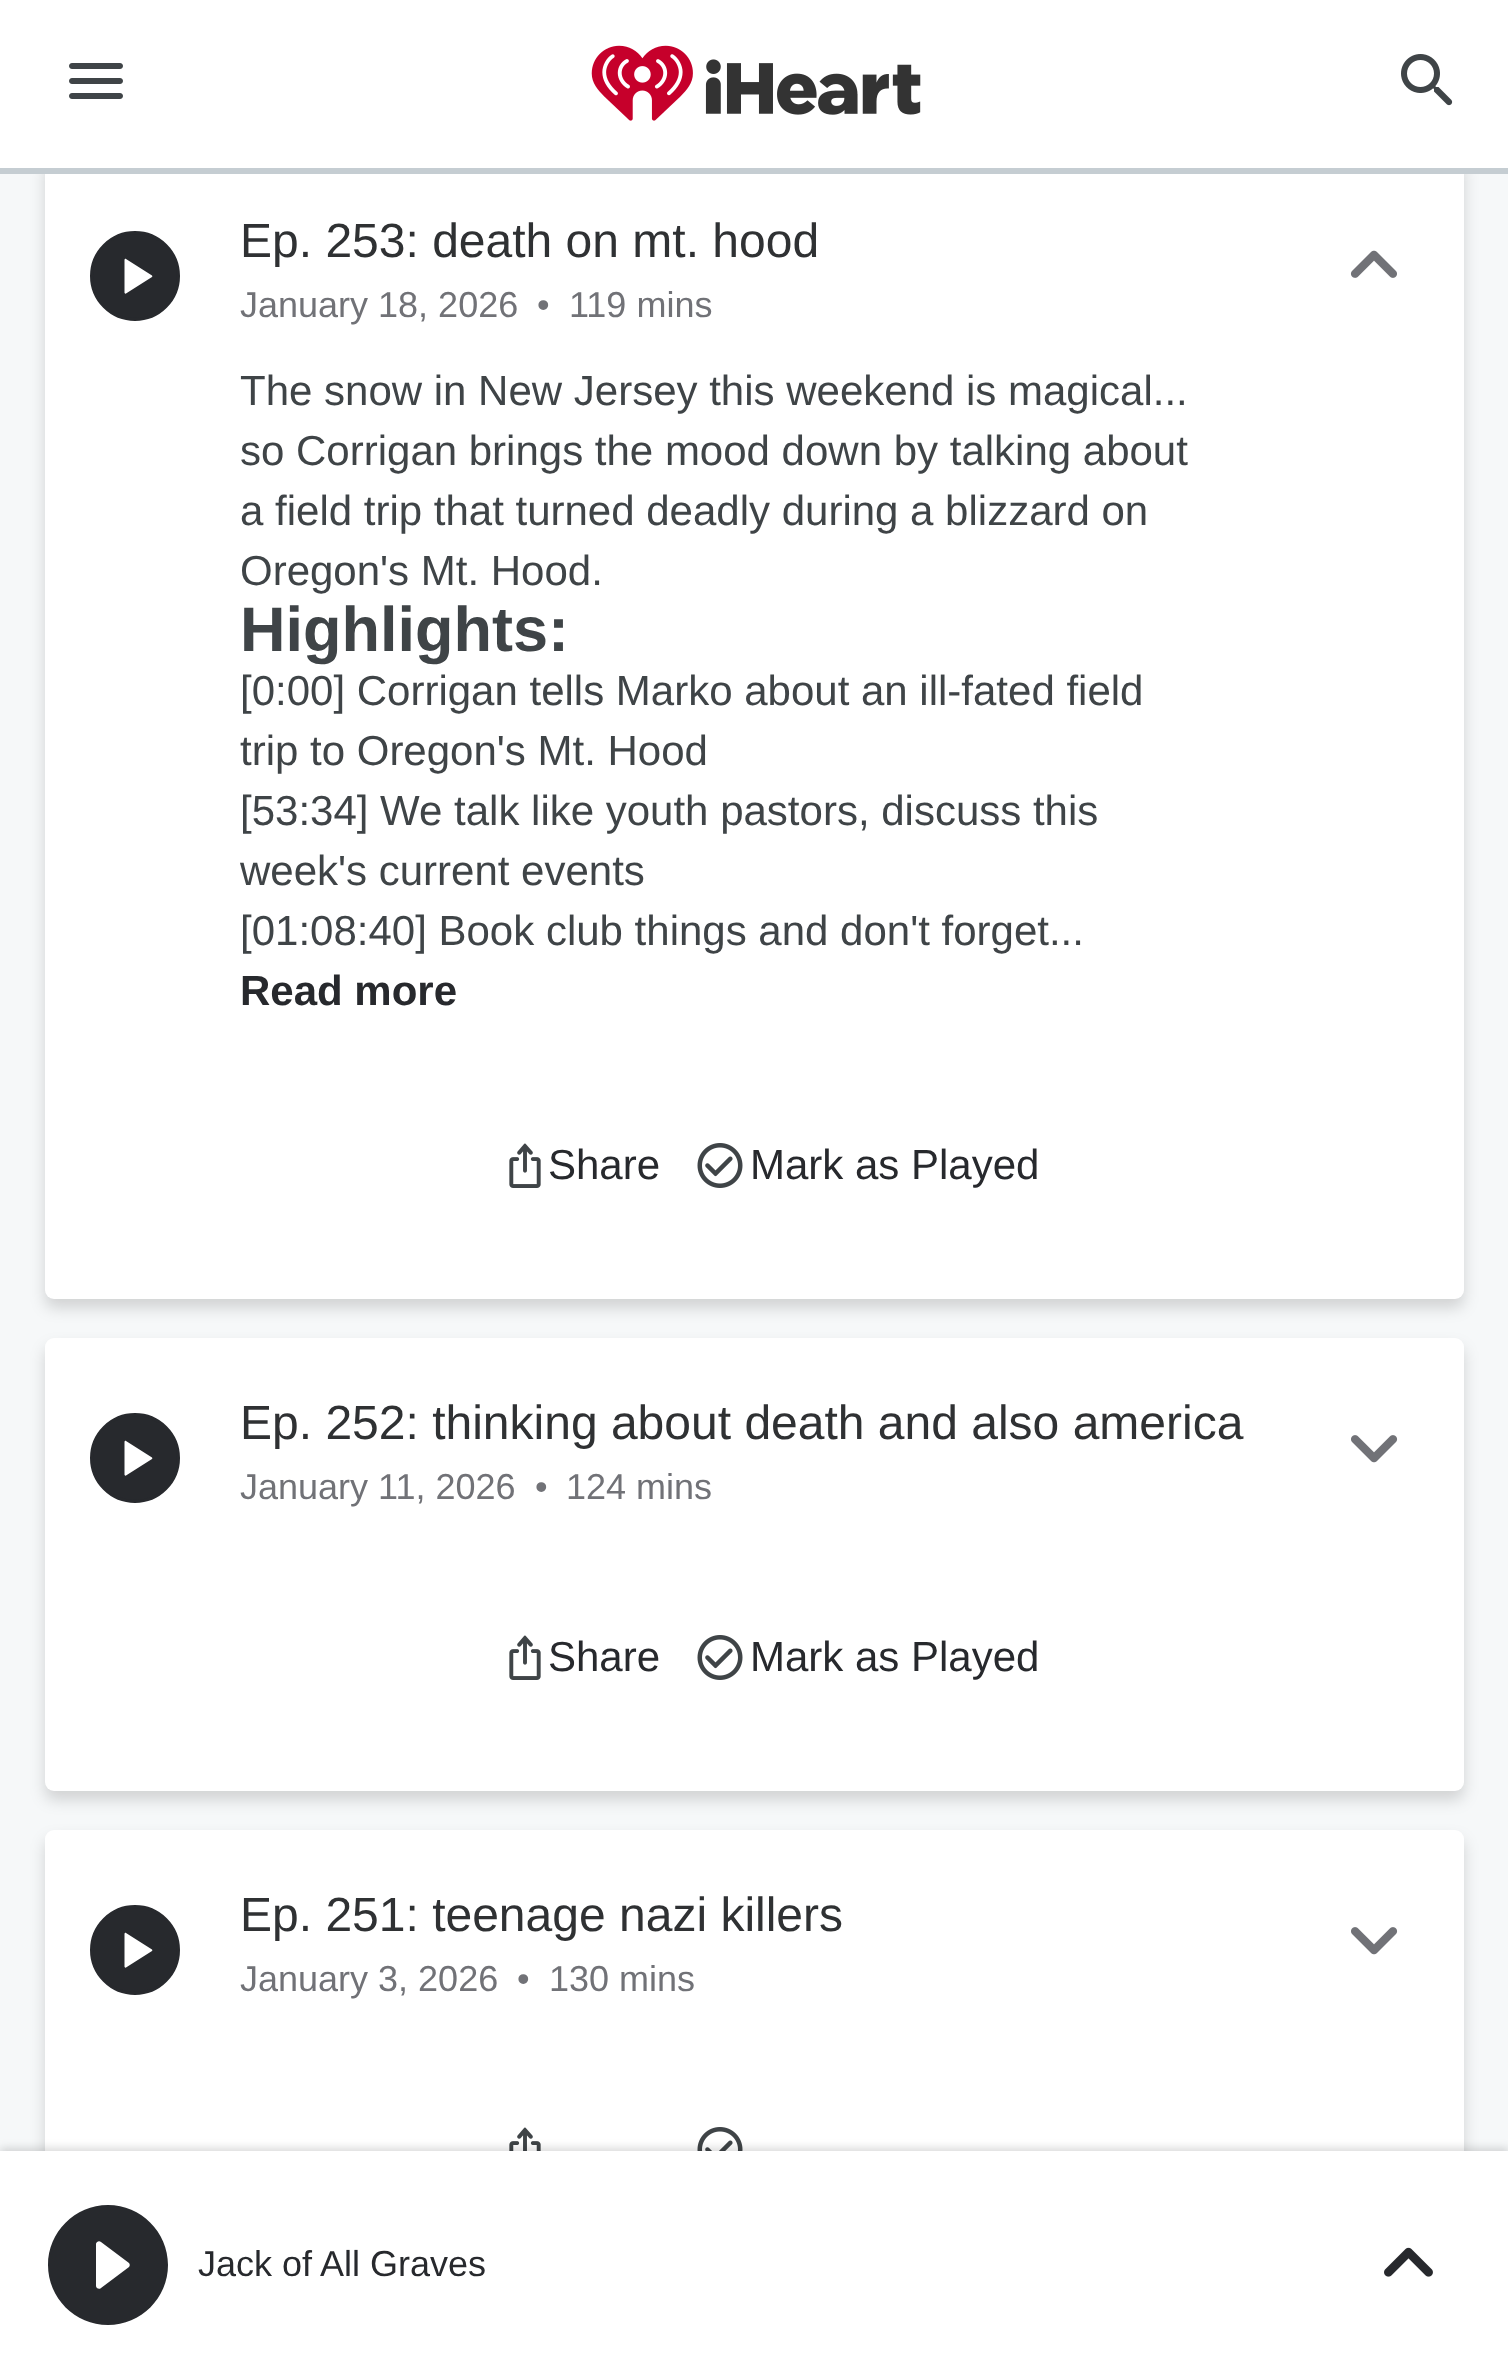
<!DOCTYPE html>
<meta charset="utf-8">
<style>body { margin: 0 } canvas { display: block }</style>
<canvas id="canvas" width="1508" height="2376"></canvas>
<img id="img1" src="images/1.png" hidden>
<img id="img2" src="images/2.png" hidden>
<img id="img3" src="images/3.png" hidden>
<img id="img4" src="images/4.png" hidden>
<img id="img5" src="images/5.png" hidden>
<img id="img6" src="images/6.png" hidden>
<img id="img7" src="images/7.png" hidden>
<img id="img8" src="images/8.png" hidden>
<img id="img9" src="images/9.png" hidden>
<img id="img10" src="images/10.png" hidden>
<script>
window.onload = function () {
    const canvas = document.getElementById('canvas');
    const context = canvas.getContext('2d');
    context.miterLimit = 4;
    context.fontKerning = 'normal';

    context.fillStyle = 'rgb(246, 248, 249)';
    context.fillRect(0, 0, 1508, 2376);
    context.fillStyle = 'rgba(0, 0, 0, 0.15)';
    context.filter = 'blur(7.5px)';
    context.beginPath();
    context.roundRect(45, 165, 1419, 1143, 9);
    context.fill();
    context.filter = 'none';
    context.fillStyle = 'rgb(255, 255, 255)';
    context.beginPath();
    context.roundRect(45, 156, 1419, 1143, 9);
    context.fill();
    context.fillRect(0, 0, 1508, 168);
    context.fillStyle = 'rgb(197, 205, 210)';
    context.fillRect(0, 168, 1508, 6);
    context.drawImage(document.getElementById('img1'), 69, 63, 54, 36);
    context.drawImage(document.getElementById('img2'), 591, 45, 330, 76);
    context.drawImage(document.getElementById('img3'), 1401, 54, 52, 52);
    context.fillStyle = 'rgb(39, 41, 45)';
    context.beginPath();
    context.arc(135, 276, 43.5, 0, 2 * Math.PI);
    context.fill();
    context.strokeStyle = 'rgb(39, 41, 45)';
    context.lineWidth = 3;
    context.stroke();
    context.fillStyle = 'rgb(255, 255, 255)';
    context.beginPath();
    context.moveTo(126, 259);
    context.lineTo(152, 275.5);
    context.bezierCurveTo(152.5, 276, 152.5, 276.5, 152, 277);
    context.lineTo(126, 293.5);
    context.bezierCurveTo(125.5, 294, 124.5, 293.5, 124.5, 292.5);
    context.lineTo(124.5, 260);
    context.bezierCurveTo(124.5, 259, 125.5, 258.5, 126, 259);
    context.closePath();
    context.fill();
    context.drawImage(document.getElementById('img4'), 1350, 250, 47, 28);
    context.drawImage(document.getElementById('img5'), 509, 1143, 32, 45);
    context.drawImage(document.getElementById('img6'), 697, 1143, 46, 45);
    context.fillStyle = 'rgba(0, 0, 0, 0.15)';
    context.filter = 'blur(7.5px)';
    context.beginPath();
    context.roundRect(45, 1347, 1419, 453, 9);
    context.fill();
    context.filter = 'none';
    context.fillStyle = 'rgb(255, 255, 255)';
    context.beginPath();
    context.roundRect(45, 1338, 1419, 453, 9);
    context.fill();
    context.fillStyle = 'rgb(39, 41, 45)';
    context.beginPath();
    context.arc(135, 1458, 43.5, 0, 2 * Math.PI);
    context.fill();
    context.stroke();
    context.fillStyle = 'rgb(255, 255, 255)';
    context.beginPath();
    context.moveTo(126, 1441);
    context.lineTo(152, 1457.5);
    context.bezierCurveTo(152.5, 1458, 152.5, 1458.5, 152, 1459);
    context.lineTo(126, 1475.5);
    context.bezierCurveTo(125.5, 1476, 124.5, 1475.5, 124.5, 1474.5);
    context.lineTo(124.5, 1442);
    context.bezierCurveTo(124.5, 1441, 125.5, 1440.5, 126, 1441);
    context.closePath();
    context.fill();
    context.drawImage(document.getElementById('img7'), 1351, 1435, 47, 28);
    context.drawImage(document.getElementById('img5'), 509, 1635, 32, 45);
    context.drawImage(document.getElementById('img6'), 697, 1635, 46, 45);
    context.fillStyle = 'rgba(0, 0, 0, 0.15)';
    context.filter = 'blur(7.5px)';
    context.beginPath();
    context.roundRect(45, 1839, 1419, 453, 9);
    context.fill();
    context.filter = 'none';
    context.fillStyle = 'rgb(255, 255, 255)';
    context.beginPath();
    context.roundRect(45, 1830, 1419, 453, 9);
    context.fill();
    context.fillStyle = 'rgb(39, 41, 45)';
    context.beginPath();
    context.arc(135, 1950, 43.5, 0, 2 * Math.PI);
    context.fill();
    context.stroke();
    context.fillStyle = 'rgb(255, 255, 255)';
    context.beginPath();
    context.moveTo(126, 1933);
    context.lineTo(152, 1949.5);
    context.bezierCurveTo(152.5, 1950, 152.5, 1950.5, 152, 1951);
    context.lineTo(126, 1967.5);
    context.bezierCurveTo(125.5, 1968, 124.5, 1967.5, 124.5, 1966.5);
    context.lineTo(124.5, 1934);
    context.bezierCurveTo(124.5, 1933, 125.5, 1932.5, 126, 1933);
    context.closePath();
    context.fill();
    context.drawImage(document.getElementById('img7'), 1351, 1927, 47, 28);
    context.drawImage(document.getElementById('img8'), 509, 2127, 32, 24);
    context.drawImage(document.getElementById('img9'), 697, 2127, 46, 24);
    context.fillStyle = 'rgba(0, 0, 0, 0.15)';
    context.filter = 'blur(4.5px)';
    context.beginPath();
    context.rect(0, 2148, 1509, 225);
    context.fill();
    context.filter = 'none';
    context.fillStyle = 'rgb(255, 255, 255)';
    context.fillRect(0, 2151, 1508, 225);
    context.fillStyle = 'rgb(39, 41, 45)';
    context.beginPath();
    context.moveTo(108, 2205);
    context.bezierCurveTo(75, 2205, 48, 2232, 48, 2265);
    context.bezierCurveTo(48, 2298, 75, 2325, 108, 2325);
    context.bezierCurveTo(141, 2325, 168, 2298, 168, 2265);
    context.bezierCurveTo(168, 2232, 141, 2205, 108, 2205);
    context.closePath();
    context.moveTo(96, 2286);
    context.lineTo(96, 2244);
    context.bezierCurveTo(96, 2242, 99, 2240, 101, 2242);
    context.lineTo(129, 2263);
    context.bezierCurveTo(130, 2264, 130, 2266, 129, 2267);
    context.lineTo(101, 2288);
    context.bezierCurveTo(99, 2290, 96, 2288, 96, 2286);
    context.closePath();
    context.fill();
    context.drawImage(document.getElementById('img10'), 1384, 2247, 49, 30);
    context.font = '48px Liberation Sans';
    context.fillStyle = 'rgb(47, 49, 51)';
    context.fillText('Ep. 253: death on mt. hood', 240, 257);
    context.font = '36px Liberation Sans';
    context.fillStyle = 'rgb(113, 114, 119)';
    context.fillText('January 18, 2026', 240, 317);
    context.fillText('•', 537, 317);
    context.fillText('119 mins', 569, 317);
    context.font = '42px Liberation Sans';
    context.fillStyle = 'rgb(63, 68, 71)';
    context.fillText('The snow in New Jersey this weekend is magical...', 240, 405);
    context.fillText('so Corrigan brings the mood down by talking about', 240, 465);
    context.fillText('a field trip that turned deadly during a blizzard on', 240, 525);
    context.fillText('Oregon\'s Mt. Hood.', 240, 585);
    context.font = 'bold 63px Liberation Sans';
    context.fillText('Highlights:', 240, 651);
    context.font = '42px Liberation Sans';
    context.fillText('[0:00] Corrigan tells Marko about an ill-fated field', 240, 705);
    context.fillText('trip to Oregon\'s Mt. Hood', 240, 765);
    context.fillText('[53:34] We talk like youth pastors, discuss this', 240, 825);
    context.fillText('week\'s current events', 240, 885);
    context.fillText('[01:08:40] Book club things and don\'t forget...', 240, 945);
    context.font = 'bold 42px Liberation Sans';
    context.fillStyle = 'rgb(39, 41, 45)';
    context.fillText('Read more', 240, 1005);
    context.font = '42px Liberation Sans';
    context.fillText('Share', 548, 1179);
    context.fillText('Mark as Played', 750, 1179);
    context.font = '48px Liberation Sans';
    context.fillStyle = 'rgb(47, 49, 51)';
    context.fillText('Ep. 252: thinking about death and also america', 240, 1439);
    context.font = '36px Liberation Sans';
    context.fillStyle = 'rgb(113, 114, 119)';
    context.fillText('January 11, 2026', 240, 1499);
    context.fillText('•', 535, 1499);
    context.fillText('124 mins', 566, 1499);
    context.font = '42px Liberation Sans';
    context.fillStyle = 'rgb(39, 41, 45)';
    context.fillText('Share', 548, 1671);
    context.fillText('Mark as Played', 750, 1671);
    context.font = '48px Liberation Sans';
    context.fillStyle = 'rgb(47, 49, 51)';
    context.fillText('Ep. 251: teenage nazi killers', 240, 1931);
    context.font = '36px Liberation Sans';
    context.fillStyle = 'rgb(113, 114, 119)';
    context.fillText('January 3, 2026', 240, 1991);
    context.fillText('•', 517, 1991);
    context.fillText('130 mins', 549, 1991);
    context.fillStyle = 'rgb(39, 41, 45)';
    context.fillText('Jack of All Graves', 198, 2276);
};
</script>
